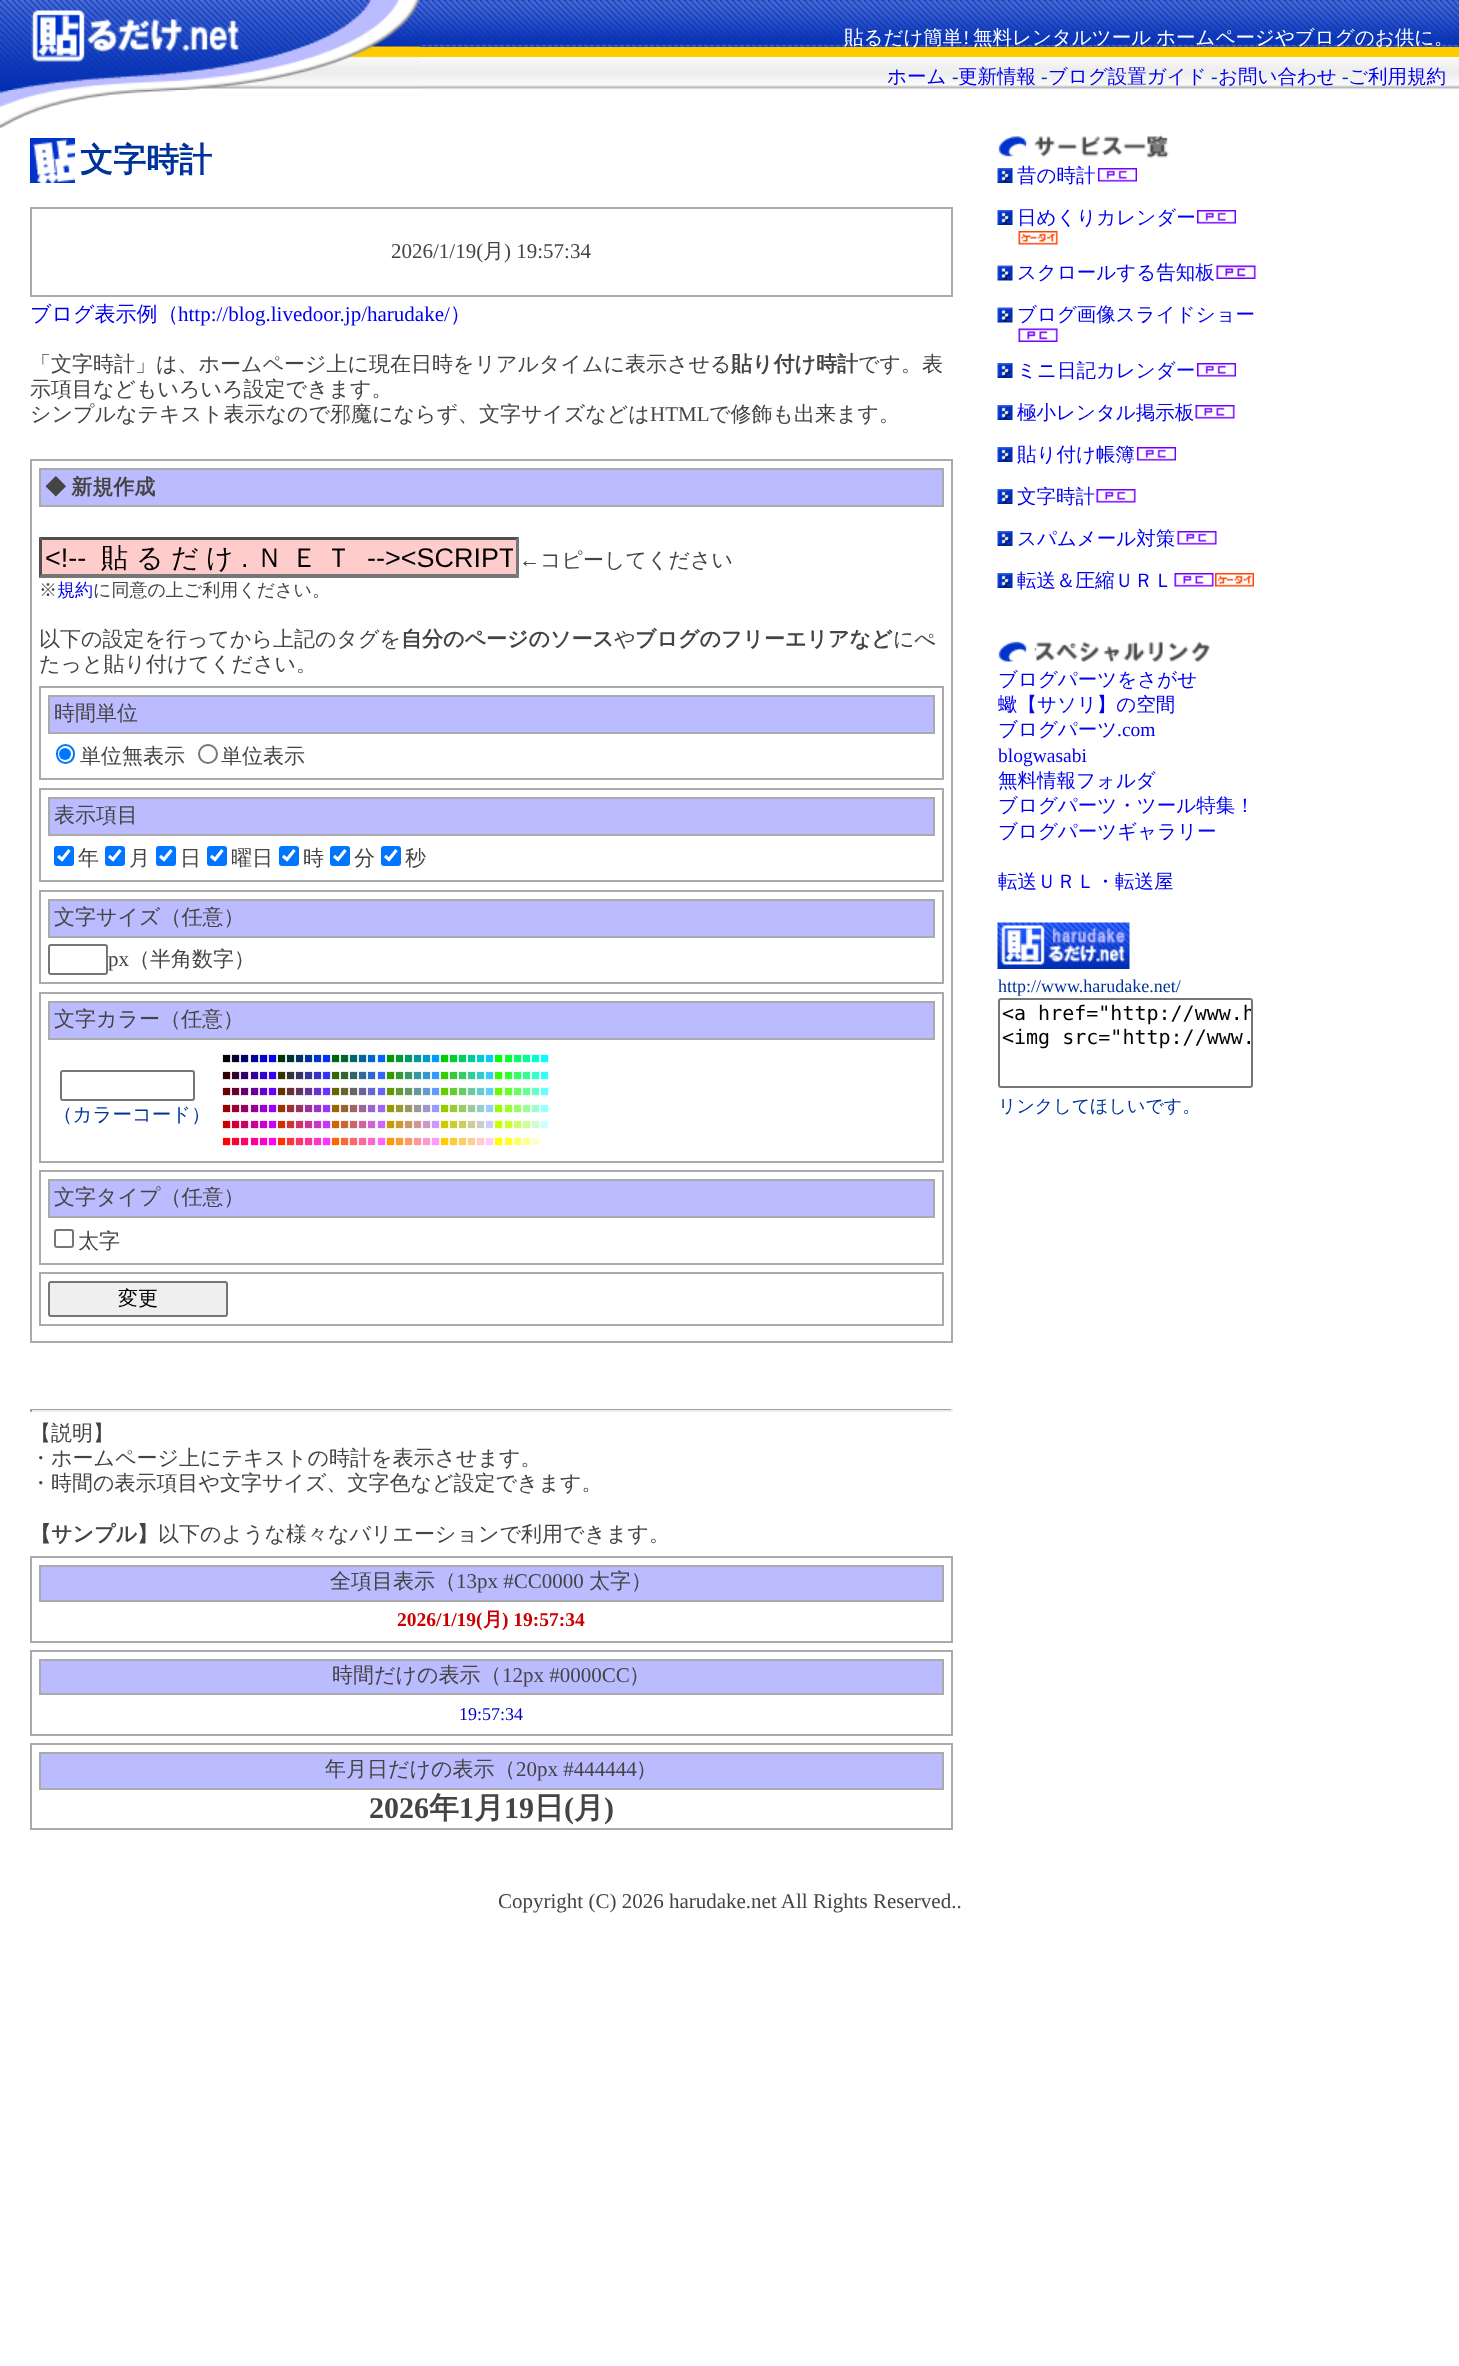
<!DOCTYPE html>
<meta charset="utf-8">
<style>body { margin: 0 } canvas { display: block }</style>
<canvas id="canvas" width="1459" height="2366"></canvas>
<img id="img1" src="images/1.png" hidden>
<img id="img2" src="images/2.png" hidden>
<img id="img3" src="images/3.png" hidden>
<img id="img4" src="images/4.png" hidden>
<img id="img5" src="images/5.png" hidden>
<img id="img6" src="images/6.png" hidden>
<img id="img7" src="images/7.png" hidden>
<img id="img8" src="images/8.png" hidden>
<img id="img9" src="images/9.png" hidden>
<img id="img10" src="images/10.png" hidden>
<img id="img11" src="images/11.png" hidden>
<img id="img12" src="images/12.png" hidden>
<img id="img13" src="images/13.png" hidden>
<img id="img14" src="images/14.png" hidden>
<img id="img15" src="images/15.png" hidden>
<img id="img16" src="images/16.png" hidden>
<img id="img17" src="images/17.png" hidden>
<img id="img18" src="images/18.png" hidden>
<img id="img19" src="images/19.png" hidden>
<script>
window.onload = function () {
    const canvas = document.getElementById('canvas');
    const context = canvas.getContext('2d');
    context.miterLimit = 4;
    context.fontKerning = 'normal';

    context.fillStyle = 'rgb(255, 255, 255)';
    context.fillRect(0, 0, 1459, 2366);
    context.drawImage(document.getElementById('img1'), 0, 0, 315, 90);
    context.drawImage(document.getElementById('img2'), 315, 0, 105, 89);
    context.fillStyle = 'rgb(0, 51, 204)';
    context.fillRect(420, 46, 1039, 1);
    context.drawImage(document.getElementById('img3'), 420, 0, 1039, 47);
    context.fillStyle = 'rgb(255, 204, 0)';
    context.fillRect(420, 47, 1039, 10);
    context.drawImage(document.getElementById('img4'), 420, 58, 1039, 31);
    context.drawImage(document.getElementById('img5'), 0, 90, 177, 39);
    context.drawImage(document.getElementById('img6'), 30, 138, 45, 45);
    context.strokeStyle = 'rgb(170, 170, 170)';
    context.lineWidth = 2;
    context.strokeRect(31, 208, 921, 88);
    context.strokeRect(31, 460, 921, 882);
    context.fillStyle = 'rgb(187, 187, 255)';
    context.beginPath();
    context.rect(40, 469, 903, 37);
    context.fill();
    context.stroke();
    context.fillStyle = 'rgb(255, 204, 204)';
    context.fillRect(39, 537, 480, 41);
    context.fillStyle = 'rgb(79, 79, 79)';
    context.beginPath();
    context.moveTo(39, 537);
    context.lineTo(519, 537);
    context.lineTo(516, 540);
    context.lineTo(42, 540);
    context.closePath();
    context.fill();
    context.fillStyle = 'rgb(118, 118, 118)';
    context.beginPath();
    context.moveTo(519, 537);
    context.lineTo(519, 578);
    context.lineTo(516, 574);
    context.lineTo(516, 540);
    context.closePath();
    context.fill();
    context.beginPath();
    context.moveTo(519, 578);
    context.lineTo(39, 578);
    context.lineTo(42, 574);
    context.lineTo(516, 574);
    context.closePath();
    context.fill();
    context.fillStyle = 'rgb(79, 79, 79)';
    context.beginPath();
    context.moveTo(39, 578);
    context.lineTo(39, 537);
    context.lineTo(42, 540);
    context.lineTo(42, 574);
    context.closePath();
    context.fill();
    context.strokeRect(40, 687, 903, 92);
    context.fillStyle = 'rgb(187, 187, 255)';
    context.beginPath();
    context.rect(49, 696, 885, 37);
    context.fill();
    context.stroke();
    context.beginPath();
    context.roundRect(57, 745, 17, 18, 8.5);
    context.strokeStyle = 'rgb(0, 117, 255)';
    context.stroke();
    context.fillStyle = 'rgb(0, 117, 255)';
    context.beginPath();
    context.arc(65, 754, 6, 0, 2 * Math.PI);
    context.fill();
    context.beginPath();
    context.arc(208, 754, 9, 0, 2 * Math.PI);
    context.strokeStyle = 'rgb(118, 118, 118)';
    context.stroke();
    context.strokeStyle = 'rgb(170, 170, 170)';
    context.strokeRect(40, 789, 903, 92);
    context.fillStyle = 'rgb(187, 187, 255)';
    context.beginPath();
    context.rect(49, 798, 885, 37);
    context.fill();
    context.stroke();
    context.fillStyle = 'rgb(0, 117, 255)';
    context.beginPath();
    context.roundRect(54, 846, 20, 20, 3);
    context.fill();
    context.beginPath();
    context.moveTo(58, 856);
    context.lineTo(62, 859.5);
    context.lineTo(69.5, 850);
    context.strokeStyle = 'rgb(255, 255, 255)';
    context.lineWidth = 3.1;
    context.stroke();
    context.beginPath();
    context.roundRect(105, 846, 20, 20, 3);
    context.fill();
    context.beginPath();
    context.moveTo(109, 856);
    context.lineTo(113, 859.5);
    context.lineTo(120.5, 850);
    context.stroke();
    context.beginPath();
    context.roundRect(156, 846, 20, 20, 3);
    context.fill();
    context.beginPath();
    context.moveTo(160, 856);
    context.lineTo(164, 859.5);
    context.lineTo(171.5, 850);
    context.stroke();
    context.beginPath();
    context.roundRect(207, 846, 20, 20, 3);
    context.fill();
    context.beginPath();
    context.moveTo(211, 856);
    context.lineTo(215, 859.5);
    context.lineTo(222.5, 850);
    context.stroke();
    context.beginPath();
    context.roundRect(279, 846, 20, 20, 3);
    context.fill();
    context.beginPath();
    context.moveTo(283, 856);
    context.lineTo(287, 859.5);
    context.lineTo(294.5, 850);
    context.stroke();
    context.beginPath();
    context.roundRect(330, 846, 20, 20, 3);
    context.fill();
    context.beginPath();
    context.moveTo(334, 856);
    context.lineTo(338, 859.5);
    context.lineTo(345.5, 850);
    context.stroke();
    context.beginPath();
    context.roundRect(381, 846, 20, 20, 3);
    context.fill();
    context.beginPath();
    context.moveTo(385, 856);
    context.lineTo(389, 859.5);
    context.lineTo(396.5, 850);
    context.stroke();
    context.strokeStyle = 'rgb(170, 170, 170)';
    context.lineWidth = 2;
    context.strokeRect(40, 891, 903, 92);
    context.fillStyle = 'rgb(187, 187, 255)';
    context.beginPath();
    context.rect(49, 900, 885, 37);
    context.fill();
    context.stroke();
    context.beginPath();
    context.roundRect(49, 945, 58, 29, 2);
    context.strokeStyle = 'rgb(118, 118, 118)';
    context.stroke();
    context.strokeStyle = 'rgb(170, 170, 170)';
    context.strokeRect(40, 993, 903, 169);
    context.beginPath();
    context.rect(49, 1002, 885, 37);
    context.fill();
    context.stroke();
    context.beginPath();
    context.roundRect(61, 1071, 133, 29, 2);
    context.strokeStyle = 'rgb(118, 118, 118)';
    context.stroke();
    context.strokeStyle = 'rgb(170, 170, 170)';
    context.strokeRect(40, 1171, 903, 93);
    context.beginPath();
    context.rect(49, 1180, 885, 37);
    context.fill();
    context.stroke();
    context.beginPath();
    context.roundRect(55, 1230, 18, 17, 2);
    context.strokeStyle = 'rgb(118, 118, 118)';
    context.stroke();
    context.strokeStyle = 'rgb(170, 170, 170)';
    context.strokeRect(40, 1273, 903, 52);
    context.fillStyle = 'rgb(239, 239, 239)';
    context.beginPath();
    context.roundRect(49, 1282, 178, 34, 2);
    context.fill();
    context.strokeStyle = 'rgb(118, 118, 118)';
    context.stroke();
    context.fillStyle = 'rgb(159, 159, 159)';
    context.fillRect(30, 1409, 923, 1);
    context.fillStyle = 'rgb(238, 238, 238)';
    context.fillRect(951, 1409, 2, 3);
    context.fillRect(30, 1410, 923, 2);
    context.fillStyle = 'rgb(159, 159, 159)';
    context.fillRect(30, 1409, 2, 3);
    context.strokeStyle = 'rgb(170, 170, 170)';
    context.strokeRect(31, 1557, 921, 85);
    context.fillStyle = 'rgb(187, 187, 255)';
    context.beginPath();
    context.rect(40, 1566, 903, 35);
    context.fill();
    context.stroke();
    context.strokeRect(31, 1651, 921, 84);
    context.beginPath();
    context.rect(40, 1660, 903, 34);
    context.fill();
    context.stroke();
    context.strokeRect(31, 1744, 921, 85);
    context.beginPath();
    context.rect(40, 1753, 903, 36);
    context.fill();
    context.stroke();
    context.drawImage(document.getElementById('img7'), 998, 136, 39, 21);
    context.drawImage(document.getElementById('img8'), 1036, 135, 133, 23);
    context.drawImage(document.getElementById('img9'), 997, 168, 16, 15);
    context.drawImage(document.getElementById('img10'), 1098, 168, 39, 14);
    context.drawImage(document.getElementById('img9'), 997, 210, 16, 15);
    context.drawImage(document.getElementById('img10'), 1197, 210, 39, 14);
    context.drawImage(document.getElementById('img11'), 1018, 231, 40, 14);
    context.drawImage(document.getElementById('img12'), 997, 265, 16, 16);
    context.drawImage(document.getElementById('img13'), 1216, 265, 40, 14);
    context.drawImage(document.getElementById('img12'), 997, 307, 16, 16);
    context.drawImage(document.getElementById('img13'), 1018, 328, 40, 14);
    context.drawImage(document.getElementById('img9'), 997, 363, 16, 15);
    context.drawImage(document.getElementById('img10'), 1197, 363, 39, 14);
    context.drawImage(document.getElementById('img9'), 997, 405, 16, 15);
    context.drawImage(document.getElementById('img14'), 1195, 405, 40, 14);
    context.drawImage(document.getElementById('img9'), 997, 447, 16, 15);
    context.drawImage(document.getElementById('img10'), 1137, 447, 39, 14);
    context.drawImage(document.getElementById('img9'), 997, 489, 16, 15);
    context.drawImage(document.getElementById('img15'), 1096, 489, 40, 14);
    context.drawImage(document.getElementById('img9'), 997, 531, 16, 15);
    context.drawImage(document.getElementById('img14'), 1177, 531, 40, 14);
    context.drawImage(document.getElementById('img9'), 997, 573, 16, 15);
    context.drawImage(document.getElementById('img14'), 1174, 573, 40, 14);
    context.drawImage(document.getElementById('img16'), 1215, 573, 39, 14);
    context.drawImage(document.getElementById('img17'), 998, 641, 39, 21);
    context.drawImage(document.getElementById('img18'), 1036, 641, 174, 21);
    context.drawImage(document.getElementById('img19'), 997, 922, 133, 47);
    context.beginPath();
    context.roundRect(999, 999, 253, 88, 2);
    context.strokeStyle = 'rgb(118, 118, 118)';
    context.stroke();
    context.font = '500 19.5px WenQuanYi Zen Hei';
    context.fillStyle = 'rgb(255, 255, 255)';
    context.fillText('貼るだけ簡単', 844, 44);
    context.font = '19.5px Liberation Serif';
    context.fillText('!', 963, 44);
    context.wordSpacing = '-1px';
    context.font = '500 19.5px WenQuanYi Zen Hei';
    context.fillText('無料レンタルツール ホームページやブログのお供に。', 973, 44);
    context.wordSpacing = '0px';
    context.fillStyle = 'rgb(0, 0, 238)';
    context.fillText('ホーム', 887, 83);
    context.font = '19.5px Liberation Serif';
    context.fillStyle = 'rgb(0, 51, 153)';
    context.fillText('-', 952, 83);
    context.font = '500 19.5px WenQuanYi Zen Hei';
    context.fillStyle = 'rgb(0, 0, 238)';
    context.fillText('更新情報', 958, 83);
    context.font = '19.5px Liberation Serif';
    context.fillStyle = 'rgb(0, 51, 153)';
    context.fillText('-', 1041, 83);
    context.font = '500 19.5px WenQuanYi Zen Hei';
    context.fillStyle = 'rgb(0, 0, 238)';
    context.fillText('ブログ設置ガイド', 1048, 83);
    context.font = '19.5px Liberation Serif';
    context.fillStyle = 'rgb(0, 51, 153)';
    context.fillText('-', 1211, 83);
    context.font = '500 19.5px WenQuanYi Zen Hei';
    context.fillStyle = 'rgb(0, 0, 238)';
    context.fillText('お問い合わせ', 1218, 83);
    context.font = '19.5px Liberation Serif';
    context.fillStyle = 'rgb(0, 51, 153)';
    context.fillText('-', 1342, 83);
    context.font = '500 19.5px WenQuanYi Zen Hei';
    context.fillStyle = 'rgb(0, 0, 238)';
    context.fillText('ご利用規約', 1348, 83);
    context.font = 'bold 33px WenQuanYi Zen Hei';
    context.fillStyle = 'rgb(0, 51, 153)';
    context.fillText('文字時計', 80, 171);
    context.font = '21px Liberation Serif';
    context.fillStyle = 'rgb(68, 68, 68)';
    context.fillText('2026/1/19(', 391, 258);
    context.font = '500 21px WenQuanYi Zen Hei';
    context.fillText('月', 483, 258);
    context.font = '21px Liberation Serif';
    context.fillText(') 19:57:34', 504, 258);
    context.font = '500 21px WenQuanYi Zen Hei';
    context.fillStyle = 'rgb(0, 0, 238)';
    context.fillText('ブログ表示例（', 30, 321);
    context.font = '21px Liberation Serif';
    context.fillText('http://blog.livedoor.jp/harudake/', 178, 321);
    context.font = '500 21px WenQuanYi Zen Hei';
    context.fillText('）', 450, 321);
    context.fillStyle = 'rgb(68, 68, 68)';
    context.fillText('「文字時計」は、ホームページ上に現在日時をリアルタイムに表示させる', 30, 371);
    context.font = 'bold 21px WenQuanYi Zen Hei';
    context.fillText('貼り付け時計', 731, 371);
    context.font = '500 21px WenQuanYi Zen Hei';
    context.fillText('です。表', 858, 371);
    context.fillText('示項目などもいろいろ設定できます。', 30, 396);
    context.fillText('シンプルなテキスト表示なので邪魔にならず、文字サイズなどは', 30, 421);
    context.font = '21px Liberation Serif';
    context.fillText('HTML', 650, 421);
    context.font = '500 21px WenQuanYi Zen Hei';
    context.fillText('で修飾も出来ます。', 709, 421);
    context.wordSpacing = '-1px';
    context.font = 'bold 21px WenQuanYi Zen Hei';
    context.fillText('◆ 新規作成', 45, 494);
    context.wordSpacing = '0px';
    context.font = '27px Liberation Sans';
    context.fillStyle = 'rgb(0, 0, 0)';
    context.fillText('<\!--', 45, 567);
    context.font = '500 27px WenQuanYi Zen Hei';
    context.fillText('貼', 101, 567);
    context.fillText('る', 136, 567);
    context.fillText('だ', 171, 567);
    context.fillText('け', 206, 567);
    context.font = '27px Liberation Sans';
    context.fillText('.', 241, 567);
    context.font = '500 27px WenQuanYi Zen Hei';
    context.fillText('Ｎ', 256, 567);
    context.fillText('Ｅ', 291, 567);
    context.fillText('Ｔ', 325, 567);
    context.save();
    context.beginPath();
    context.rect(45, 540, 468, 35);
    context.clip();
    context.font = '27px Liberation Sans';
    context.fillText('--><SCRIPT', 367, 567);
    context.restore();
    context.font = '21px Liberation Serif';
    context.fillStyle = 'rgb(68, 68, 68)';
    context.fillText('←', 519, 567);
    context.font = '500 21px WenQuanYi Zen Hei';
    context.fillText('コピーしてください', 540, 567);
    context.font = '500 18px WenQuanYi Zen Hei';
    context.fillText('※', 39, 596);
    context.fillStyle = 'rgb(0, 0, 238)';
    context.fillText('規約', 57, 596);
    context.fillStyle = 'rgb(68, 68, 68)';
    context.fillText('に同意の上ご利用ください。', 93, 596);
    context.font = '500 21px WenQuanYi Zen Hei';
    context.fillText('以下の設定を行ってから上記のタグを', 39, 646);
    context.font = 'bold 21px WenQuanYi Zen Hei';
    context.fillText('自分のページのソース', 401, 646);
    context.font = '500 21px WenQuanYi Zen Hei';
    context.fillText('や', 614, 646);
    context.font = 'bold 21px WenQuanYi Zen Hei';
    context.fillText('ブログのフリーエリアなど', 635, 646);
    context.font = '500 21px WenQuanYi Zen Hei';
    context.fillText('にぺ', 893, 646);
    context.fillText('たっと貼り付けてください。', 39, 671);
    context.fillText('時間単位', 54, 720);
    context.fillText('単位無表示', 80, 763);
    context.fillText('単位表示', 221, 763);
    context.fillText('表示項目', 54, 822);
    context.fillText('年', 78, 865);
    context.fillText('月', 129, 865);
    context.fillText('日', 180, 865);
    context.fillText('曜日', 231, 865);
    context.fillText('時', 303, 865);
    context.fillText('分', 354, 865);
    context.fillText('秒', 405, 865);
    context.fillText('文字サイズ（任意）', 54, 924);
    context.font = '21px Liberation Serif';
    context.fillText('px', 108, 966);
    context.font = '500 21px WenQuanYi Zen Hei';
    context.fillText('（半角数字）', 129, 966);
    context.fillText('文字カラー（任意）', 54, 1026);
    context.font = '500 19.5px WenQuanYi Zen Hei';
    context.fillStyle = 'rgb(0, 51, 153)';
    context.fillText('（カラーコード）', 53, 1121);
    context.font = '15px Liberation Serif';
    context.fillStyle = 'rgb(0, 0, 0)';
    context.fillText('■', 222, 1063);
    context.fillStyle = 'rgb(0, 0, 51)';
    context.fillText('■', 231, 1063);
    context.fillStyle = 'rgb(0, 0, 102)';
    context.fillText('■', 240, 1063);
    context.fillStyle = 'rgb(0, 0, 153)';
    context.fillText('■', 250, 1063);
    context.fillStyle = 'rgb(0, 0, 204)';
    context.fillText('■', 259, 1063);
    context.fillStyle = 'rgb(0, 0, 255)';
    context.fillText('■', 268, 1063);
    context.fillStyle = 'rgb(0, 51, 0)';
    context.fillText('■', 277, 1063);
    context.fillStyle = 'rgb(0, 51, 51)';
    context.fillText('■', 286, 1063);
    context.fillStyle = 'rgb(0, 51, 102)';
    context.fillText('■', 295, 1063);
    context.fillStyle = 'rgb(0, 51, 153)';
    context.fillText('■', 304, 1063);
    context.fillStyle = 'rgb(0, 51, 204)';
    context.fillText('■', 313, 1063);
    context.fillStyle = 'rgb(0, 51, 255)';
    context.fillText('■', 322, 1063);
    context.fillStyle = 'rgb(0, 102, 0)';
    context.fillText('■', 331, 1063);
    context.fillStyle = 'rgb(0, 102, 51)';
    context.fillText('■', 340, 1063);
    context.fillStyle = 'rgb(0, 102, 102)';
    context.fillText('■', 349, 1063);
    context.fillStyle = 'rgb(0, 102, 153)';
    context.fillText('■', 358, 1063);
    context.fillStyle = 'rgb(0, 102, 204)';
    context.fillText('■', 367, 1063);
    context.fillStyle = 'rgb(0, 102, 255)';
    context.fillText('■', 377, 1063);
    context.fillStyle = 'rgb(0, 153, 0)';
    context.fillText('■', 386, 1063);
    context.fillStyle = 'rgb(0, 153, 51)';
    context.fillText('■', 395, 1063);
    context.fillStyle = 'rgb(0, 153, 102)';
    context.fillText('■', 404, 1063);
    context.fillStyle = 'rgb(0, 153, 153)';
    context.fillText('■', 413, 1063);
    context.fillStyle = 'rgb(0, 153, 204)';
    context.fillText('■', 422, 1063);
    context.fillStyle = 'rgb(0, 153, 255)';
    context.fillText('■', 431, 1063);
    context.fillStyle = 'rgb(0, 204, 0)';
    context.fillText('■', 440, 1063);
    context.fillStyle = 'rgb(0, 204, 51)';
    context.fillText('■', 449, 1063);
    context.fillStyle = 'rgb(0, 204, 102)';
    context.fillText('■', 458, 1063);
    context.fillStyle = 'rgb(0, 204, 153)';
    context.fillText('■', 467, 1063);
    context.fillStyle = 'rgb(0, 204, 204)';
    context.fillText('■', 476, 1063);
    context.fillStyle = 'rgb(0, 204, 255)';
    context.fillText('■', 485, 1063);
    context.fillStyle = 'rgb(0, 255, 0)';
    context.fillText('■', 494, 1063);
    context.fillStyle = 'rgb(0, 255, 51)';
    context.fillText('■', 504, 1063);
    context.fillStyle = 'rgb(0, 255, 102)';
    context.fillText('■', 513, 1063);
    context.fillStyle = 'rgb(0, 255, 153)';
    context.fillText('■', 522, 1063);
    context.fillStyle = 'rgb(0, 255, 204)';
    context.fillText('■', 531, 1063);
    context.fillStyle = 'rgb(0, 255, 255)';
    context.fillText('■', 540, 1063);
    context.fillStyle = 'rgb(51, 0, 0)';
    context.fillText('■', 222, 1080);
    context.fillStyle = 'rgb(51, 0, 51)';
    context.fillText('■', 231, 1080);
    context.fillStyle = 'rgb(51, 0, 102)';
    context.fillText('■', 240, 1080);
    context.fillStyle = 'rgb(51, 0, 153)';
    context.fillText('■', 250, 1080);
    context.fillStyle = 'rgb(51, 0, 204)';
    context.fillText('■', 259, 1080);
    context.fillStyle = 'rgb(51, 0, 255)';
    context.fillText('■', 268, 1080);
    context.fillStyle = 'rgb(51, 51, 0)';
    context.fillText('■', 277, 1080);
    context.fillStyle = 'rgb(51, 51, 51)';
    context.fillText('■', 286, 1080);
    context.fillStyle = 'rgb(51, 51, 102)';
    context.fillText('■', 295, 1080);
    context.fillStyle = 'rgb(51, 51, 153)';
    context.fillText('■', 304, 1080);
    context.fillStyle = 'rgb(51, 51, 204)';
    context.fillText('■', 313, 1080);
    context.fillStyle = 'rgb(51, 51, 255)';
    context.fillText('■', 322, 1080);
    context.fillStyle = 'rgb(51, 102, 0)';
    context.fillText('■', 331, 1080);
    context.fillStyle = 'rgb(51, 102, 51)';
    context.fillText('■', 340, 1080);
    context.fillStyle = 'rgb(51, 102, 102)';
    context.fillText('■', 349, 1080);
    context.fillStyle = 'rgb(51, 102, 153)';
    context.fillText('■', 358, 1080);
    context.fillStyle = 'rgb(51, 102, 204)';
    context.fillText('■', 367, 1080);
    context.fillStyle = 'rgb(51, 102, 255)';
    context.fillText('■', 377, 1080);
    context.fillStyle = 'rgb(51, 153, 0)';
    context.fillText('■', 386, 1080);
    context.fillStyle = 'rgb(51, 153, 51)';
    context.fillText('■', 395, 1080);
    context.fillStyle = 'rgb(51, 153, 102)';
    context.fillText('■', 404, 1080);
    context.fillStyle = 'rgb(51, 153, 153)';
    context.fillText('■', 413, 1080);
    context.fillStyle = 'rgb(51, 153, 204)';
    context.fillText('■', 422, 1080);
    context.fillStyle = 'rgb(51, 153, 255)';
    context.fillText('■', 431, 1080);
    context.fillStyle = 'rgb(51, 204, 0)';
    context.fillText('■', 440, 1080);
    context.fillStyle = 'rgb(51, 204, 51)';
    context.fillText('■', 449, 1080);
    context.fillStyle = 'rgb(51, 204, 102)';
    context.fillText('■', 458, 1080);
    context.fillStyle = 'rgb(51, 204, 153)';
    context.fillText('■', 467, 1080);
    context.fillStyle = 'rgb(51, 204, 204)';
    context.fillText('■', 476, 1080);
    context.fillStyle = 'rgb(51, 204, 255)';
    context.fillText('■', 485, 1080);
    context.fillStyle = 'rgb(51, 255, 0)';
    context.fillText('■', 494, 1080);
    context.fillStyle = 'rgb(51, 255, 51)';
    context.fillText('■', 504, 1080);
    context.fillStyle = 'rgb(51, 255, 102)';
    context.fillText('■', 513, 1080);
    context.fillStyle = 'rgb(51, 255, 153)';
    context.fillText('■', 522, 1080);
    context.fillStyle = 'rgb(51, 255, 204)';
    context.fillText('■', 531, 1080);
    context.fillStyle = 'rgb(51, 255, 255)';
    context.fillText('■', 540, 1080);
    context.fillStyle = 'rgb(102, 0, 0)';
    context.fillText('■', 222, 1096);
    context.fillStyle = 'rgb(102, 0, 51)';
    context.fillText('■', 231, 1096);
    context.fillStyle = 'rgb(102, 0, 102)';
    context.fillText('■', 240, 1096);
    context.fillStyle = 'rgb(102, 0, 153)';
    context.fillText('■', 250, 1096);
    context.fillStyle = 'rgb(102, 0, 204)';
    context.fillText('■', 259, 1096);
    context.fillStyle = 'rgb(102, 0, 255)';
    context.fillText('■', 268, 1096);
    context.fillStyle = 'rgb(102, 51, 0)';
    context.fillText('■', 277, 1096);
    context.fillStyle = 'rgb(102, 51, 51)';
    context.fillText('■', 286, 1096);
    context.fillStyle = 'rgb(102, 51, 102)';
    context.fillText('■', 295, 1096);
    context.fillStyle = 'rgb(102, 51, 153)';
    context.fillText('■', 304, 1096);
    context.fillStyle = 'rgb(102, 51, 204)';
    context.fillText('■', 313, 1096);
    context.fillStyle = 'rgb(102, 51, 255)';
    context.fillText('■', 322, 1096);
    context.fillStyle = 'rgb(102, 102, 0)';
    context.fillText('■', 331, 1096);
    context.fillStyle = 'rgb(102, 102, 51)';
    context.fillText('■', 340, 1096);
    context.fillStyle = 'rgb(102, 102, 102)';
    context.fillText('■', 349, 1096);
    context.fillStyle = 'rgb(102, 102, 153)';
    context.fillText('■', 358, 1096);
    context.fillStyle = 'rgb(102, 102, 204)';
    context.fillText('■', 367, 1096);
    context.fillStyle = 'rgb(102, 102, 255)';
    context.fillText('■', 377, 1096);
    context.fillStyle = 'rgb(102, 153, 0)';
    context.fillText('■', 386, 1096);
    context.fillStyle = 'rgb(102, 153, 51)';
    context.fillText('■', 395, 1096);
    context.fillStyle = 'rgb(102, 153, 102)';
    context.fillText('■', 404, 1096);
    context.fillStyle = 'rgb(102, 153, 153)';
    context.fillText('■', 413, 1096);
    context.fillStyle = 'rgb(102, 153, 204)';
    context.fillText('■', 422, 1096);
    context.fillStyle = 'rgb(102, 153, 255)';
    context.fillText('■', 431, 1096);
    context.fillStyle = 'rgb(102, 204, 0)';
    context.fillText('■', 440, 1096);
    context.fillStyle = 'rgb(102, 204, 51)';
    context.fillText('■', 449, 1096);
    context.fillStyle = 'rgb(102, 204, 102)';
    context.fillText('■', 458, 1096);
    context.fillStyle = 'rgb(102, 204, 153)';
    context.fillText('■', 467, 1096);
    context.fillStyle = 'rgb(102, 204, 204)';
    context.fillText('■', 476, 1096);
    context.fillStyle = 'rgb(102, 204, 255)';
    context.fillText('■', 485, 1096);
    context.fillStyle = 'rgb(102, 255, 0)';
    context.fillText('■', 494, 1096);
    context.fillStyle = 'rgb(102, 255, 51)';
    context.fillText('■', 504, 1096);
    context.fillStyle = 'rgb(102, 255, 102)';
    context.fillText('■', 513, 1096);
    context.fillStyle = 'rgb(102, 255, 153)';
    context.fillText('■', 522, 1096);
    context.fillStyle = 'rgb(102, 255, 204)';
    context.fillText('■', 531, 1096);
    context.fillStyle = 'rgb(102, 255, 255)';
    context.fillText('■', 540, 1096);
    context.fillStyle = 'rgb(153, 0, 0)';
    context.fillText('■', 222, 1113);
    context.fillStyle = 'rgb(153, 0, 51)';
    context.fillText('■', 231, 1113);
    context.fillStyle = 'rgb(153, 0, 102)';
    context.fillText('■', 240, 1113);
    context.fillStyle = 'rgb(153, 0, 153)';
    context.fillText('■', 250, 1113);
    context.fillStyle = 'rgb(153, 0, 204)';
    context.fillText('■', 259, 1113);
    context.fillStyle = 'rgb(153, 0, 255)';
    context.fillText('■', 268, 1113);
    context.fillStyle = 'rgb(153, 51, 0)';
    context.fillText('■', 277, 1113);
    context.fillStyle = 'rgb(153, 51, 51)';
    context.fillText('■', 286, 1113);
    context.fillStyle = 'rgb(153, 51, 102)';
    context.fillText('■', 295, 1113);
    context.fillStyle = 'rgb(153, 51, 153)';
    context.fillText('■', 304, 1113);
    context.fillStyle = 'rgb(153, 51, 204)';
    context.fillText('■', 313, 1113);
    context.fillStyle = 'rgb(153, 51, 255)';
    context.fillText('■', 322, 1113);
    context.fillStyle = 'rgb(153, 102, 0)';
    context.fillText('■', 331, 1113);
    context.fillStyle = 'rgb(153, 102, 51)';
    context.fillText('■', 340, 1113);
    context.fillStyle = 'rgb(153, 102, 102)';
    context.fillText('■', 349, 1113);
    context.fillStyle = 'rgb(153, 102, 153)';
    context.fillText('■', 358, 1113);
    context.fillStyle = 'rgb(153, 102, 204)';
    context.fillText('■', 367, 1113);
    context.fillStyle = 'rgb(153, 102, 255)';
    context.fillText('■', 377, 1113);
    context.fillStyle = 'rgb(153, 153, 0)';
    context.fillText('■', 386, 1113);
    context.fillStyle = 'rgb(153, 153, 51)';
    context.fillText('■', 395, 1113);
    context.fillStyle = 'rgb(153, 153, 102)';
    context.fillText('■', 404, 1113);
    context.fillStyle = 'rgb(153, 153, 153)';
    context.fillText('■', 413, 1113);
    context.fillStyle = 'rgb(153, 153, 204)';
    context.fillText('■', 422, 1113);
    context.fillStyle = 'rgb(153, 153, 255)';
    context.fillText('■', 431, 1113);
    context.fillStyle = 'rgb(153, 204, 0)';
    context.fillText('■', 440, 1113);
    context.fillStyle = 'rgb(153, 204, 51)';
    context.fillText('■', 449, 1113);
    context.fillStyle = 'rgb(153, 204, 102)';
    context.fillText('■', 458, 1113);
    context.fillStyle = 'rgb(153, 204, 153)';
    context.fillText('■', 467, 1113);
    context.fillStyle = 'rgb(153, 204, 204)';
    context.fillText('■', 476, 1113);
    context.fillStyle = 'rgb(153, 204, 255)';
    context.fillText('■', 485, 1113);
    context.fillStyle = 'rgb(153, 255, 0)';
    context.fillText('■', 494, 1113);
    context.fillStyle = 'rgb(153, 255, 51)';
    context.fillText('■', 504, 1113);
    context.fillStyle = 'rgb(153, 255, 102)';
    context.fillText('■', 513, 1113);
    context.fillStyle = 'rgb(153, 255, 153)';
    context.fillText('■', 522, 1113);
    context.fillStyle = 'rgb(153, 255, 204)';
    context.fillText('■', 531, 1113);
    context.fillStyle = 'rgb(153, 255, 255)';
    context.fillText('■', 540, 1113);
    context.fillStyle = 'rgb(204, 0, 0)';
    context.fillText('■', 222, 1129);
    context.fillStyle = 'rgb(204, 0, 51)';
    context.fillText('■', 231, 1129);
    context.fillStyle = 'rgb(204, 0, 102)';
    context.fillText('■', 240, 1129);
    context.fillStyle = 'rgb(204, 0, 153)';
    context.fillText('■', 250, 1129);
    context.fillStyle = 'rgb(204, 0, 204)';
    context.fillText('■', 259, 1129);
    context.fillStyle = 'rgb(204, 0, 255)';
    context.fillText('■', 268, 1129);
    context.fillStyle = 'rgb(204, 51, 0)';
    context.fillText('■', 277, 1129);
    context.fillStyle = 'rgb(204, 51, 51)';
    context.fillText('■', 286, 1129);
    context.fillStyle = 'rgb(204, 51, 102)';
    context.fillText('■', 295, 1129);
    context.fillStyle = 'rgb(204, 51, 153)';
    context.fillText('■', 304, 1129);
    context.fillStyle = 'rgb(204, 51, 204)';
    context.fillText('■', 313, 1129);
    context.fillStyle = 'rgb(204, 51, 255)';
    context.fillText('■', 322, 1129);
    context.fillStyle = 'rgb(204, 102, 0)';
    context.fillText('■', 331, 1129);
    context.fillStyle = 'rgb(204, 102, 51)';
    context.fillText('■', 340, 1129);
    context.fillStyle = 'rgb(204, 102, 102)';
    context.fillText('■', 349, 1129);
    context.fillStyle = 'rgb(204, 102, 153)';
    context.fillText('■', 358, 1129);
    context.fillStyle = 'rgb(204, 102, 204)';
    context.fillText('■', 367, 1129);
    context.fillStyle = 'rgb(204, 102, 255)';
    context.fillText('■', 377, 1129);
    context.fillStyle = 'rgb(204, 153, 0)';
    context.fillText('■', 386, 1129);
    context.fillStyle = 'rgb(204, 153, 51)';
    context.fillText('■', 395, 1129);
    context.fillStyle = 'rgb(204, 153, 102)';
    context.fillText('■', 404, 1129);
    context.fillStyle = 'rgb(204, 153, 153)';
    context.fillText('■', 413, 1129);
    context.fillStyle = 'rgb(204, 153, 204)';
    context.fillText('■', 422, 1129);
    context.fillStyle = 'rgb(204, 153, 255)';
    context.fillText('■', 431, 1129);
    context.fillStyle = 'rgb(204, 204, 0)';
    context.fillText('■', 440, 1129);
    context.fillStyle = 'rgb(204, 204, 51)';
    context.fillText('■', 449, 1129);
    context.fillStyle = 'rgb(204, 204, 102)';
    context.fillText('■', 458, 1129);
    context.fillStyle = 'rgb(204, 204, 153)';
    context.fillText('■', 467, 1129);
    context.fillStyle = 'rgb(204, 204, 204)';
    context.fillText('■', 476, 1129);
    context.fillStyle = 'rgb(204, 204, 255)';
    context.fillText('■', 485, 1129);
    context.fillStyle = 'rgb(204, 255, 0)';
    context.fillText('■', 494, 1129);
    context.fillStyle = 'rgb(204, 255, 51)';
    context.fillText('■', 504, 1129);
    context.fillStyle = 'rgb(204, 255, 102)';
    context.fillText('■', 513, 1129);
    context.fillStyle = 'rgb(204, 255, 153)';
    context.fillText('■', 522, 1129);
    context.fillStyle = 'rgb(204, 255, 204)';
    context.fillText('■', 531, 1129);
    context.fillStyle = 'rgb(204, 255, 255)';
    context.fillText('■', 540, 1129);
    context.fillStyle = 'rgb(255, 0, 0)';
    context.fillText('■', 222, 1146);
    context.fillStyle = 'rgb(255, 0, 51)';
    context.fillText('■', 231, 1146);
    context.fillStyle = 'rgb(255, 0, 102)';
    context.fillText('■', 240, 1146);
    context.fillStyle = 'rgb(255, 0, 153)';
    context.fillText('■', 250, 1146);
    context.fillStyle = 'rgb(255, 0, 204)';
    context.fillText('■', 259, 1146);
    context.fillStyle = 'rgb(255, 0, 255)';
    context.fillText('■', 268, 1146);
    context.fillStyle = 'rgb(255, 51, 0)';
    context.fillText('■', 277, 1146);
    context.fillStyle = 'rgb(255, 51, 51)';
    context.fillText('■', 286, 1146);
    context.fillStyle = 'rgb(255, 51, 102)';
    context.fillText('■', 295, 1146);
    context.fillStyle = 'rgb(255, 51, 153)';
    context.fillText('■', 304, 1146);
    context.fillStyle = 'rgb(255, 51, 204)';
    context.fillText('■', 313, 1146);
    context.fillStyle = 'rgb(255, 51, 255)';
    context.fillText('■', 322, 1146);
    context.fillStyle = 'rgb(255, 102, 0)';
    context.fillText('■', 331, 1146);
    context.fillStyle = 'rgb(255, 102, 51)';
    context.fillText('■', 340, 1146);
    context.fillStyle = 'rgb(255, 102, 102)';
    context.fillText('■', 349, 1146);
    context.fillStyle = 'rgb(255, 102, 153)';
    context.fillText('■', 358, 1146);
    context.fillStyle = 'rgb(255, 102, 204)';
    context.fillText('■', 367, 1146);
    context.fillStyle = 'rgb(255, 102, 255)';
    context.fillText('■', 377, 1146);
    context.fillStyle = 'rgb(255, 153, 0)';
    context.fillText('■', 386, 1146);
    context.fillStyle = 'rgb(255, 153, 51)';
    context.fillText('■', 395, 1146);
    context.fillStyle = 'rgb(255, 153, 102)';
    context.fillText('■', 404, 1146);
    context.fillStyle = 'rgb(255, 153, 153)';
    context.fillText('■', 413, 1146);
    context.fillStyle = 'rgb(255, 153, 204)';
    context.fillText('■', 422, 1146);
    context.fillStyle = 'rgb(255, 153, 255)';
    context.fillText('■', 431, 1146);
    context.fillStyle = 'rgb(255, 204, 0)';
    context.fillText('■', 440, 1146);
    context.fillStyle = 'rgb(255, 204, 51)';
    context.fillText('■', 449, 1146);
    context.fillStyle = 'rgb(255, 204, 102)';
    context.fillText('■', 458, 1146);
    context.fillStyle = 'rgb(255, 204, 153)';
    context.fillText('■', 467, 1146);
    context.fillStyle = 'rgb(255, 204, 204)';
    context.fillText('■', 476, 1146);
    context.fillStyle = 'rgb(255, 204, 255)';
    context.fillText('■', 485, 1146);
    context.fillStyle = 'rgb(255, 255, 0)';
    context.fillText('■', 494, 1146);
    context.fillStyle = 'rgb(255, 255, 51)';
    context.fillText('■', 504, 1146);
    context.fillStyle = 'rgb(255, 255, 102)';
    context.fillText('■', 513, 1146);
    context.fillStyle = 'rgb(255, 255, 153)';
    context.fillText('■', 522, 1146);
    context.fillStyle = 'rgb(255, 255, 204)';
    context.fillText('■', 531, 1146);
    context.font = '500 21px WenQuanYi Zen Hei';
    context.fillStyle = 'rgb(68, 68, 68)';
    context.fillText('文字タイプ（任意）', 54, 1204);
    context.fillText('太字', 78, 1248);
    context.font = '500 20px WenQuanYi Zen Hei';
    context.fillStyle = 'rgb(0, 0, 0)';
    context.fillText('変更', 118, 1305);
    context.font = '500 21px WenQuanYi Zen Hei';
    context.fillStyle = 'rgb(68, 68, 68)';
    context.fillText('【説明】', 30, 1440);
    context.fillText('・ホームページ上にテキストの時計を表示させます。', 30, 1465);
    context.fillText('・時間の表示項目や文字サイズ、文字色など設定できます。', 30, 1490);
    context.font = 'bold 21px WenQuanYi Zen Hei';
    context.fillText('【サンプル】', 30, 1541);
    context.font = '500 21px WenQuanYi Zen Hei';
    context.fillText('以下のような様々なバリエーションで利用できます。', 158, 1541);
    context.fillText('全項目表示（', 330, 1588);
    context.font = '21px Liberation Serif';
    context.fillText('13px #CC0000', 456, 1588);
    context.font = '500 21px WenQuanYi Zen Hei';
    context.fillText('太字）', 589, 1588);
    context.font = 'bold 19.5px Liberation Serif';
    context.fillStyle = 'rgb(204, 0, 0)';
    context.fillText('2026/1/19(', 397, 1626);
    context.font = 'bold 19.5px WenQuanYi Zen Hei';
    context.fillText('月', 483, 1626);
    context.font = 'bold 19.5px Liberation Serif';
    context.fillText(') 19:57:34', 502, 1626);
    context.font = '500 21px WenQuanYi Zen Hei';
    context.fillStyle = 'rgb(68, 68, 68)';
    context.fillText('時間だけの表示（', 332, 1682);
    context.font = '21px Liberation Serif';
    context.fillText('12px #0000CC', 502, 1682);
    context.font = '500 21px WenQuanYi Zen Hei';
    context.fillText('）', 629, 1682);
    context.font = '18px Liberation Serif';
    context.fillStyle = 'rgb(0, 0, 204)';
    context.fillText('19:57:34', 459, 1720);
    context.font = '500 21px WenQuanYi Zen Hei';
    context.fillStyle = 'rgb(68, 68, 68)';
    context.fillText('年月日だけの表示（', 325, 1776);
    context.font = '21px Liberation Serif';
    context.fillText('20px #444444', 516, 1776);
    context.font = '500 21px WenQuanYi Zen Hei';
    context.fillText('）', 636, 1776);
    context.font = 'bold 30px Liberation Serif';
    context.fillText('2026', 369, 1818);
    context.font = 'bold 30px WenQuanYi Zen Hei';
    context.fillText('年', 429, 1818);
    context.font = 'bold 30px Liberation Serif';
    context.fillText('1', 459, 1818);
    context.font = 'bold 30px WenQuanYi Zen Hei';
    context.fillText('月', 474, 1818);
    context.font = 'bold 30px Liberation Serif';
    context.fillText('19', 504, 1818);
    context.font = 'bold 30px WenQuanYi Zen Hei';
    context.fillText('日', 534, 1818);
    context.font = 'bold 30px Liberation Serif';
    context.fillText('(', 564, 1818);
    context.font = 'bold 30px WenQuanYi Zen Hei';
    context.fillText('月', 574, 1818);
    context.font = 'bold 30px Liberation Serif';
    context.fillText(')', 604, 1818);
    context.font = '500 19.5px WenQuanYi Zen Hei';
    context.fillStyle = 'rgb(0, 0, 238)';
    context.fillText('昔の時計', 1017, 182);
    context.fillText('日めくりカレンダー', 1017, 224);
    context.fillText('スクロールする告知板', 1017, 279);
    context.fillText('ブログ画像スライドショー', 1017, 321);
    context.fillText('ミニ日記カレンダー', 1017, 377);
    context.fillText('極小レンタル掲示板', 1017, 419);
    context.fillText('貼り付け帳簿', 1017, 461);
    context.fillText('文字時計', 1017, 503);
    context.fillText('スパムメール対策', 1017, 545);
    context.fillText('転送＆圧縮ＵＲＬ', 1017, 587);
    context.fillText('ブログパーツをさがせ', 998, 686);
    context.fillText('蠍【サソリ】の空間', 998, 711);
    context.fillText('ブログパーツ', 998, 736);
    context.font = '19.5px Liberation Serif';
    context.fillText('.com', 1117, 736);
    context.fillText('blogwasabi', 998, 762);
    context.font = '500 19.5px WenQuanYi Zen Hei';
    context.fillText('無料情報フォルダ', 998, 787);
    context.fillText('ブログパーツ・ツール特集！', 998, 812);
    context.fillText('ブログパーツギャラリー', 998, 838);
    context.fillText('転送ＵＲＬ・転送屋', 998, 888);
    context.font = '18px Liberation Serif';
    context.fillStyle = 'rgb(0, 51, 153)';
    context.fillText('http://www.harudake.net/', 998, 992);
    context.save();
    context.beginPath();
    context.rect(999, 999, 252, 87);
    context.clip();
    context.font = '20px DejaVu Sans Mono';
    context.fillStyle = 'rgb(0, 0, 0)';
    context.fillText('<a href="http://www.h', 1002, 1020);
    context.restore();
    context.font = '20px DejaVu Sans Mono';
    context.fillStyle = 'rgb(0, 0, 0)';
    context.fillText('<img src="http://www.', 1002, 1044);
    context.font = '500 18px WenQuanYi Zen Hei';
    context.fillStyle = 'rgb(0, 51, 153)';
    context.fillText('リンクしてほしいです。', 998, 1112);
    context.font = '21px Liberation Serif';
    context.fillStyle = 'rgb(68, 68, 68)';
    context.fillText('Copyright (C) 2026 harudake.net All Rights Reserved..', 498, 1908);
};
</script>
